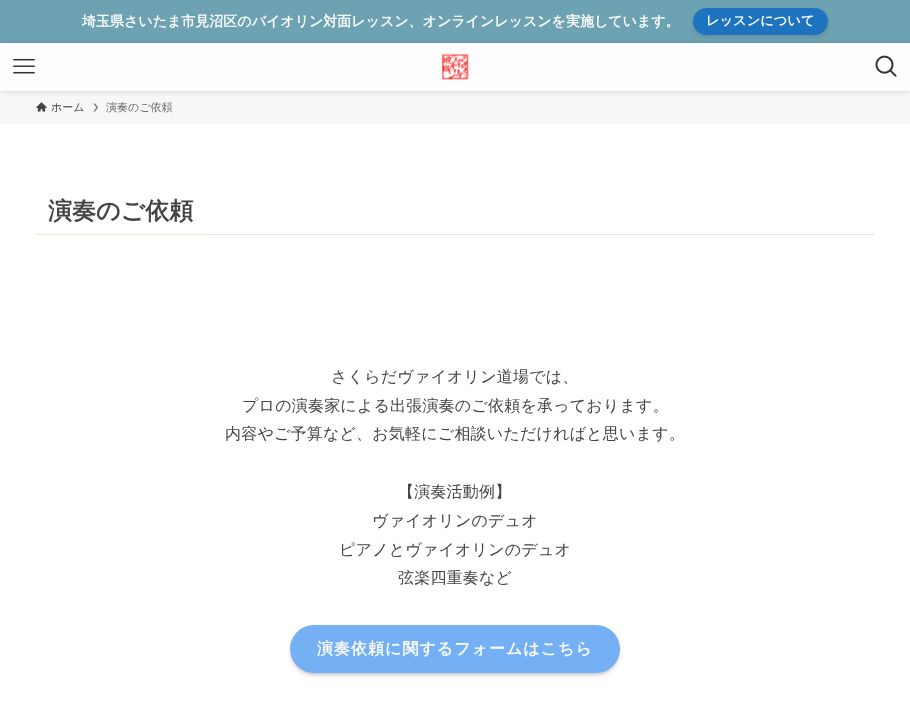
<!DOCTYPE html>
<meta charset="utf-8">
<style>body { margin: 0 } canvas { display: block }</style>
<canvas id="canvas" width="910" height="728"></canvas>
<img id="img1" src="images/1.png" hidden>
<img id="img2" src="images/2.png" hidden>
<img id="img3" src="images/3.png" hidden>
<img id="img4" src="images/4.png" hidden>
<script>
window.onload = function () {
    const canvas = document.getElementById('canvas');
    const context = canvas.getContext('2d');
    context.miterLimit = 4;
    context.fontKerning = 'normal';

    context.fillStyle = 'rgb(255, 255, 255)';
    context.fillRect(0, 0, 910, 728);
    context.fillStyle = 'rgb(108, 162, 178)';
    context.fillRect(0, 0, 910, 43);
    context.fillStyle = 'rgba(0, 0, 0, 0.12)';
    context.filter = 'blur(2px)';
    context.beginPath();
    context.roundRect(693, 10, 135, 27, 13.5);
    context.fill();
    context.filter = 'none';
    context.fillStyle = 'rgb(30, 115, 190)';
    context.beginPath();
    context.roundRect(693, 8, 135, 27, 13.5);
    context.fill();
    context.fillStyle = 'rgb(247, 247, 247)';
    context.fillRect(0, 91, 910, 33);
    context.fillStyle = 'rgba(0, 0, 0, 0.12)';
    context.filter = 'blur(2px)';
    context.beginPath();
    context.rect(0, 44, 910, 48);
    context.fill();
    context.filter = 'none';
    context.fillStyle = 'rgb(253, 253, 253)';
    context.fillRect(0, 43, 910, 48);
    context.drawImage(document.getElementById('img1'), 13, 58, 22, 16);
    context.drawImage(document.getElementById('img2'), 442, 53, 27, 27);
    context.drawImage(document.getElementById('img3'), 875, 55, 22, 22);
    context.drawImage(document.getElementById('img4'), 36, 102, 11, 10);
    context.fillStyle = 'rgb(104, 104, 104)';
    context.beginPath();
    context.moveTo(95, 103.5);
    context.lineTo(93.5, 103.5);
    context.lineTo(96.5, 107.5);
    context.lineTo(93.5, 111.5);
    context.lineTo(95, 111.5);
    context.lineTo(98, 107.5);
    context.closePath();
    context.fill();
    context.fillStyle = 'rgb(227, 227, 227)';
    context.fillRect(206, 234, 668, 1);
    context.fillStyle = 'rgb(237, 237, 211)';
    context.fillRect(36, 234, 170, 1);
    context.fillStyle = 'rgba(0, 0, 0, 0.2)';
    context.filter = 'blur(4px)';
    context.beginPath();
    context.roundRect(294, 633, 322, 40, 20);
    context.fill();
    context.filter = 'none';
    context.fillStyle = 'rgba(0, 0, 0, 0.1)';
    context.filter = 'blur(1px)';
    context.beginPath();
    context.roundRect(290, 627, 330, 48, 24);
    context.fill();
    context.filter = 'none';
    context.fillStyle = 'rgb(117, 176, 244)';
    context.beginPath();
    context.roundRect(290, 625, 330, 48, 24);
    context.fill();
    context.font = 'bold 14px WenQuanYi Zen Hei';
    context.fillStyle = 'rgb(252, 252, 252)';
    context.fillText('埼玉県さいたま市見沼区のバイオリン対面レッスン、オンラインレッスンを実施しています。', 82, 26);
    context.font = 'bold 13.25px WenQuanYi Zen Hei';
    context.fillText('レッスンについて', 706, 25);
    context.font = '500 11px WenQuanYi Zen Hei';
    context.fillStyle = 'rgb(68, 68, 68)';
    context.fillText('ホーム', 51, 111);
    context.fillStyle = 'rgb(104, 104, 104)';
    context.fillText('演奏のご依頼', 106, 111);
    context.font = 'bold 24px WenQuanYi Zen Hei';
    context.fillStyle = 'rgb(68, 68, 68)';
    context.fillText('演奏のご依頼', 48, 219);
    context.letterSpacing = '0.2px';
    context.font = '500 16px WenQuanYi Zen Hei';
    context.fillText('さくらだヴァイオリン道場では、', 331, 382);
    context.fillText('プロの演奏家による出張演奏のご依頼を承っております。', 242, 411);
    context.fillText('内容やご予算など、お気軽にご相談いただければと思います。', 225, 439);
    context.fillText('【演奏活動例】', 398, 497);
    context.fillText('ヴァイオリンのデュオ', 372, 526);
    context.fillText('ピアノとヴァイオリンのデュオ', 339, 555);
    context.fillText('弦楽四重奏など', 398, 583);
    context.letterSpacing = '1px';
    context.font = 'bold 16px WenQuanYi Zen Hei';
    context.fillStyle = 'rgb(252, 252, 252)';
    context.fillText('演奏依頼に関するフォームはこちら', 317, 654);
};
</script>
